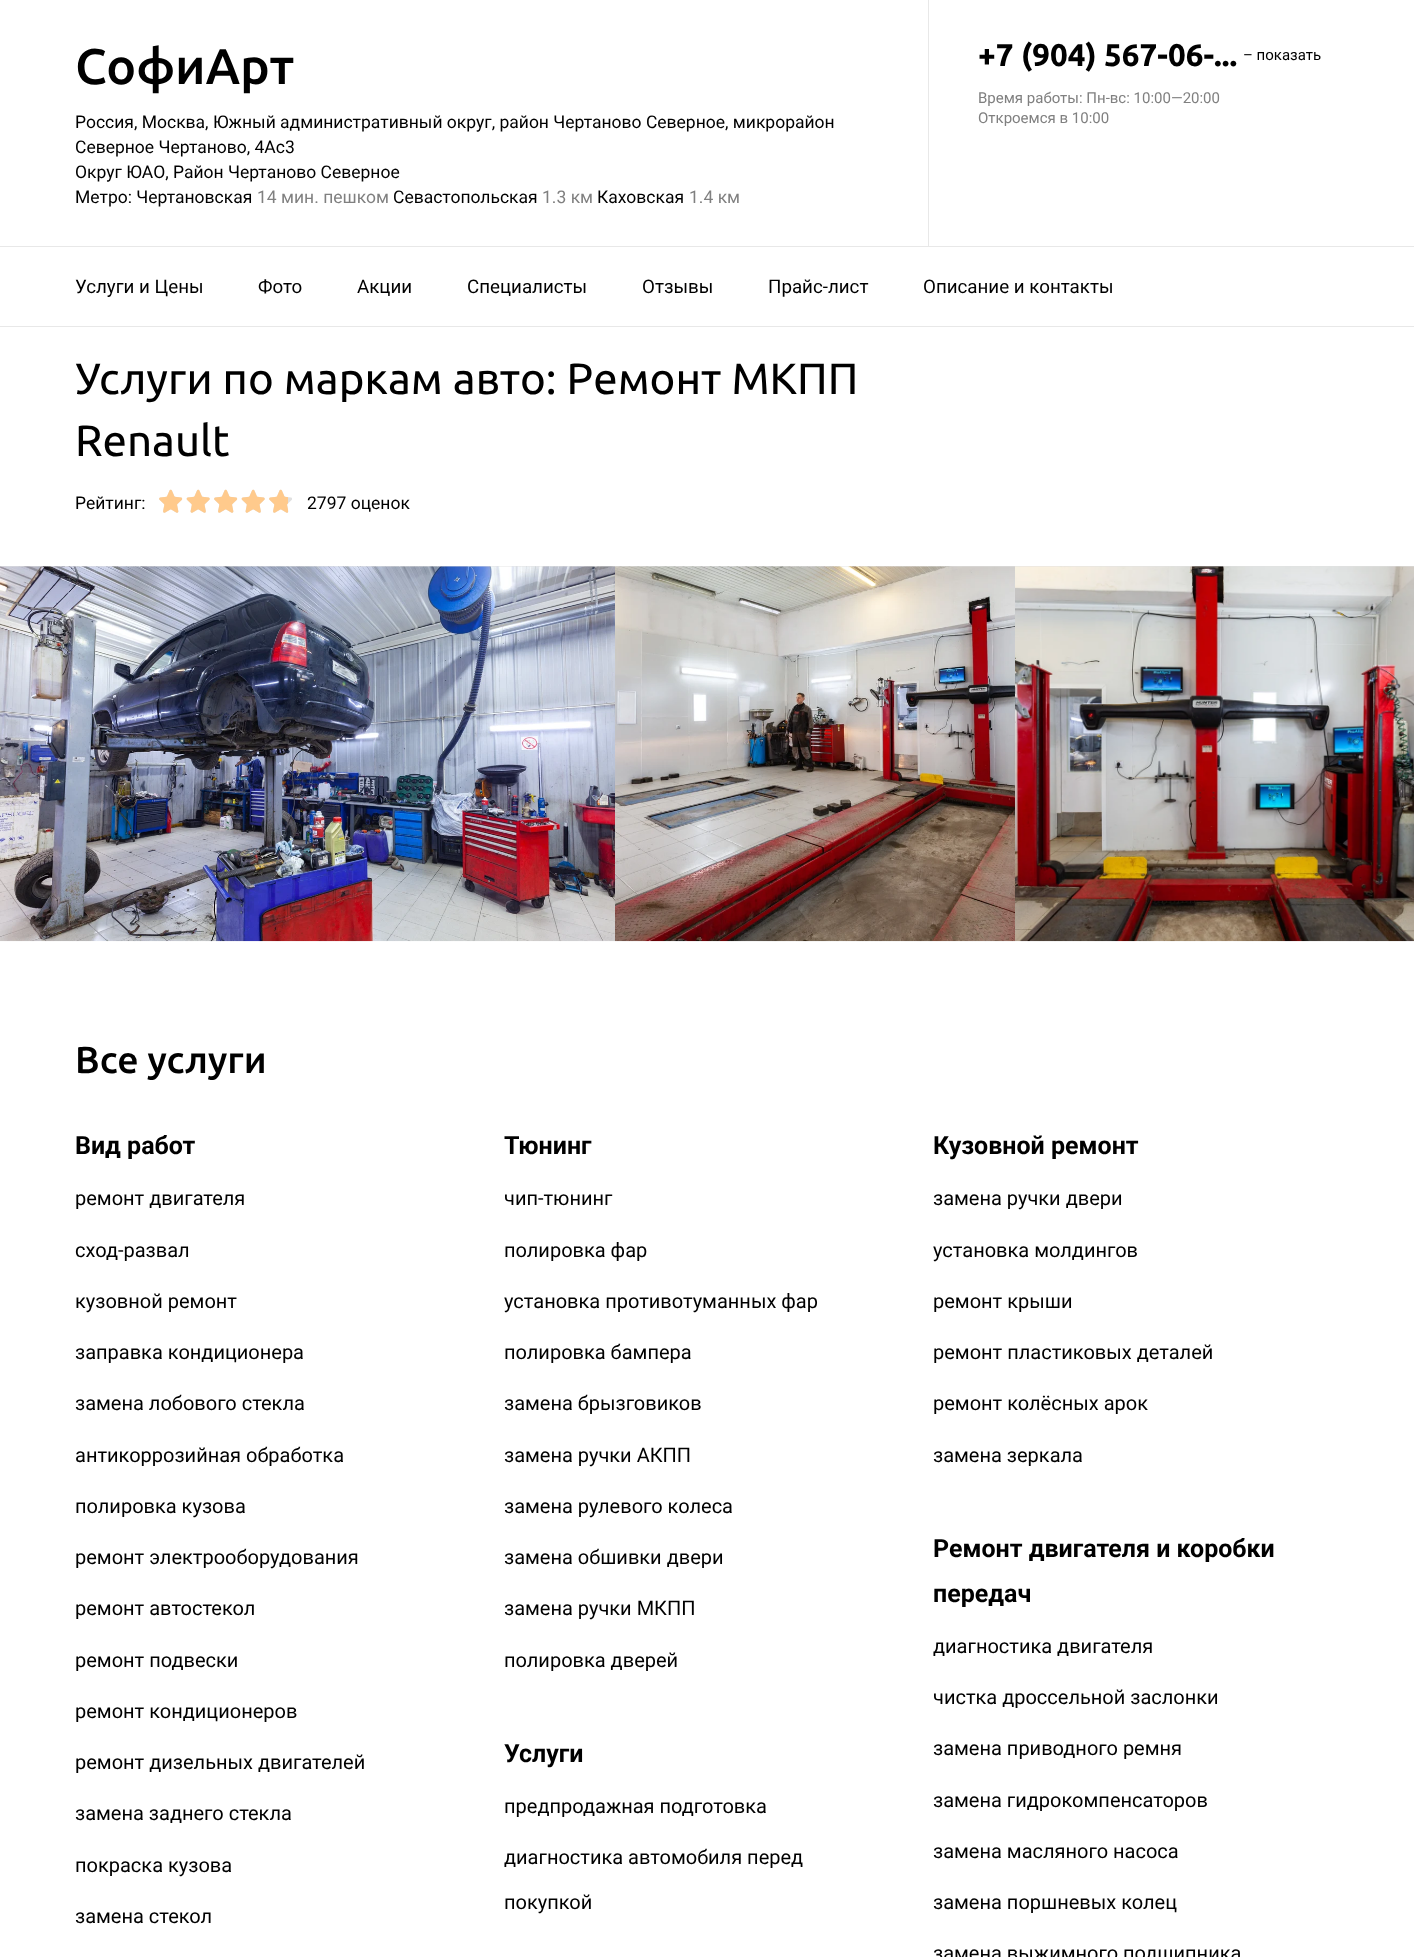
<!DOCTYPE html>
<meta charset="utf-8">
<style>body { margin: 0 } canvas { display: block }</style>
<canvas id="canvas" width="1414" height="1957"></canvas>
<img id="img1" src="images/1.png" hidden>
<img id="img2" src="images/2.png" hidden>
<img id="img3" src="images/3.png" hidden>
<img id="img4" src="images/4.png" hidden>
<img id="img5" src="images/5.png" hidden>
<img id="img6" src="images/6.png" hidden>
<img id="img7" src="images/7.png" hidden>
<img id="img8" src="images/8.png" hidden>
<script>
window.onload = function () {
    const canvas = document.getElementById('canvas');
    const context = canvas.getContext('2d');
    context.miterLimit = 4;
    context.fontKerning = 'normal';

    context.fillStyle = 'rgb(255, 255, 255)';
    context.fillRect(0, 0, 1414, 1957);
    context.fillStyle = 'rgb(232, 232, 232)';
    context.fillRect(928, 0, 1, 246);
    context.fillRect(0, 246, 1414, 1);
    context.fillRect(0, 326, 1414, 1);
    context.drawImage(document.getElementById('img1'), 159, 489, 23, 24);
    context.drawImage(document.getElementById('img2'), 159, 489, 24, 24);
    context.drawImage(document.getElementById('img3'), 186, 489, 24, 24);
    context.drawImage(document.getElementById('img4'), 186, 489, 24, 24);
    context.drawImage(document.getElementById('img1'), 214, 489, 23, 24);
    context.drawImage(document.getElementById('img2'), 214, 489, 24, 24);
    context.drawImage(document.getElementById('img3'), 241, 489, 24, 24);
    context.drawImage(document.getElementById('img4'), 241, 489, 24, 24);
    context.drawImage(document.getElementById('img1'), 269, 489, 23, 24);
    context.drawImage(document.getElementById('img5'), 269, 489, 19, 24);
    context.fillStyle = 'rgb(224, 224, 224)';
    context.fillRect(0, 566, 1414, 1);
    context.drawImage(document.getElementById('img6'), 0, 566, 615, 376);
    context.drawImage(document.getElementById('img7'), 615, 566, 400, 376);
    context.drawImage(document.getElementById('img8'), 1015, 566, 399, 376);
    context.font = '500 50px Ubuntu';
    context.fillStyle = 'rgb(0, 0, 0)';
    context.fillText('СофиАрт', 75, 84);
    context.font = '17.5px Roboto';
    context.fillText('Россия, Москва, Южный административный округ, район Чертаново Северное, микрорайон', 75, 128);
    context.fillText('Северное Чертаново, 4Ас3', 75, 153);
    context.fillText('Округ ЮАО, Район Чертаново Северное', 75, 178);
    context.fillText('Метро: Чертановская', 75, 203);
    context.fillStyle = 'rgb(128, 128, 128)';
    context.fillText('14 мин. пешком', 257, 203);
    context.fillStyle = 'rgb(0, 0, 0)';
    context.fillText('Севастопольская', 393, 203);
    context.fillStyle = 'rgb(128, 128, 128)';
    context.fillText('1.3 км', 542, 203);
    context.fillStyle = 'rgb(0, 0, 0)';
    context.fillText('Каховская', 597, 203);
    context.fillStyle = 'rgb(128, 128, 128)';
    context.fillText('1.4 км', 689, 203);
    context.font = 'bold 31.25px Ubuntu';
    context.fillStyle = 'rgb(0, 0, 0)';
    context.fillText('+7 (904) 567-06-...', 978, 66);
    context.font = '15px Roboto';
    context.fillText('– показать', 1243, 60);
    context.fillStyle = 'rgb(128, 128, 128)';
    context.fillText('Время работы: Пн-вс: 10:00—20:00', 978, 103);
    context.fillText('Откроемся в 10:00', 978, 123);
    context.font = '18.75px Roboto';
    context.fillStyle = 'rgb(0, 0, 0)';
    context.fillText('Услуги и Цены', 75, 293);
    context.fillText('Фото', 258, 293);
    context.fillText('Акции', 357, 293);
    context.fillText('Специалисты', 467, 293);
    context.fillText('Отзывы', 642, 293);
    context.fillText('Прайс-лист', 768, 293);
    context.fillText('Описание и контакты', 923, 293);
    context.font = '43.75px Ubuntu';
    context.fillText('Услуги по маркам авто: Ремонт МКПП', 75, 394);
    context.fillText('Renault', 75, 456);
    context.font = '17.5px Roboto';
    context.fillText('Рейтинг:', 75, 509);
    context.fillText('2797 оценок', 307, 509);
    context.font = '500 37.5px Ubuntu';
    context.fillText('Все услуги', 75, 1073);
    context.font = 'bold 25px Roboto';
    context.fillText('Вид работ', 75, 1154);
    context.font = '20px Roboto';
    context.fillText('ремонт двигателя', 75, 1205);
    context.fillText('сход-развал', 75, 1257);
    context.fillText('кузовной ремонт', 75, 1308);
    context.fillText('заправка кондиционера', 75, 1359);
    context.fillText('замена лобового стекла', 75, 1410);
    context.fillText('антикоррозийная обработка', 75, 1462);
    context.fillText('полировка кузова', 75, 1513);
    context.fillText('ремонт электрооборудования', 75, 1564);
    context.fillText('ремонт автостекол', 75, 1615);
    context.fillText('ремонт подвески', 75, 1667);
    context.fillText('ремонт кондиционеров', 75, 1718);
    context.fillText('ремонт дизельных двигателей', 75, 1769);
    context.fillText('замена заднего стекла', 75, 1820);
    context.fillText('покраска кузова', 75, 1872);
    context.fillText('замена стекол', 75, 1923);
    context.font = 'bold 25px Roboto';
    context.fillText('Тюнинг', 504, 1154);
    context.font = '20px Roboto';
    context.fillText('чип-тюнинг', 504, 1205);
    context.fillText('полировка фар', 504, 1257);
    context.fillText('установка противотуманных фар', 504, 1308);
    context.fillText('полировка бампера', 504, 1359);
    context.fillText('замена брызговиков', 504, 1410);
    context.fillText('замена ручки АКПП', 504, 1462);
    context.fillText('замена рулевого колеса', 504, 1513);
    context.fillText('замена обшивки двери', 504, 1564);
    context.fillText('замена ручки МКПП', 504, 1615);
    context.fillText('полировка дверей', 504, 1667);
    context.font = 'bold 25px Roboto';
    context.fillText('Услуги', 504, 1762);
    context.font = '20px Roboto';
    context.fillText('предпродажная подготовка', 504, 1813);
    context.fillText('диагностика автомобиля перед', 504, 1864);
    context.fillText('покупкой', 504, 1909);
    context.font = 'bold 25px Roboto';
    context.fillText('Кузовной ремонт', 933, 1154);
    context.font = '20px Roboto';
    context.fillText('замена ручки двери', 933, 1205);
    context.fillText('установка молдингов', 933, 1257);
    context.fillText('ремонт крыши', 933, 1308);
    context.fillText('ремонт пластиковых деталей', 933, 1359);
    context.fillText('ремонт колёсных арок', 933, 1410);
    context.fillText('замена зеркала', 933, 1462);
    context.font = 'bold 25px Roboto';
    context.fillText('Ремонт двигателя и коробки', 933, 1557);
    context.fillText('передач', 933, 1602);
    context.font = '20px Roboto';
    context.fillText('диагностика двигателя', 933, 1653);
    context.fillText('чистка дроссельной заслонки', 933, 1704);
    context.fillText('замена приводного ремня', 933, 1755);
    context.fillText('замена гидрокомпенсаторов', 933, 1807);
    context.fillText('замена масляного насоса', 933, 1858);
    context.fillText('замена поршневых колец', 933, 1909);
    context.fillText('замена выжимного подшипника', 933, 1960);
};
</script>
